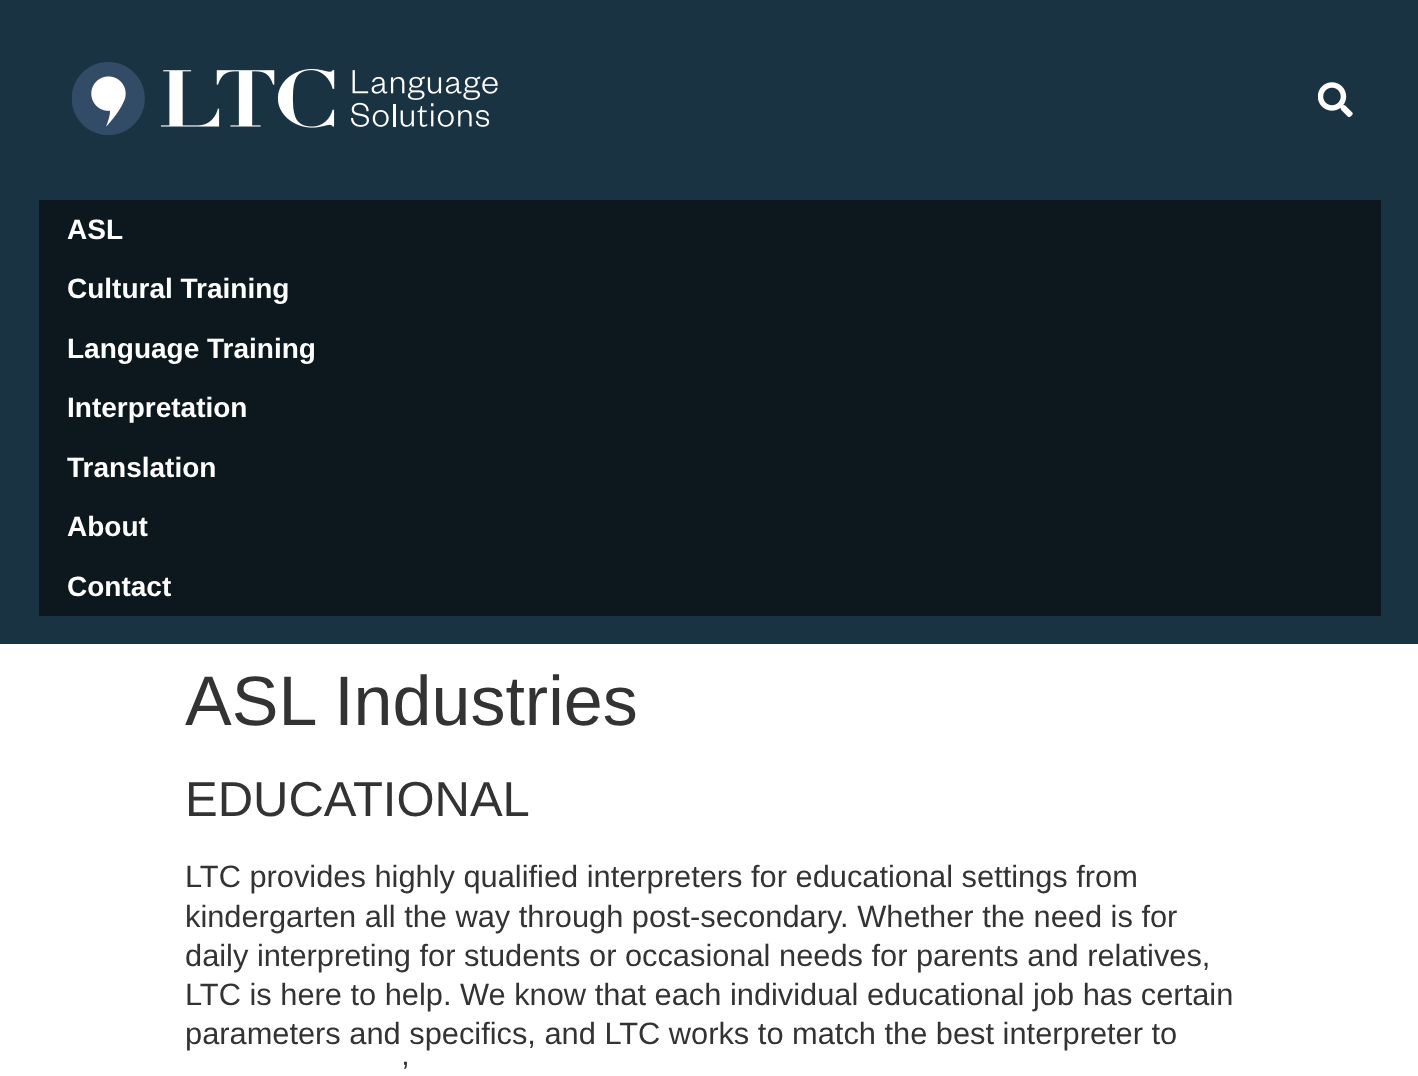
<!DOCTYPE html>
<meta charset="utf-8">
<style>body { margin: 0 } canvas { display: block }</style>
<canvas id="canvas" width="1418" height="1076"></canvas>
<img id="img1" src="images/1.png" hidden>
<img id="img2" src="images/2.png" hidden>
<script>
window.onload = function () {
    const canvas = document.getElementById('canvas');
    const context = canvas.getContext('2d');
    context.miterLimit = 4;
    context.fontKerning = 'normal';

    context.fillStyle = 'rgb(255, 255, 255)';
    context.fillRect(0, 0, 1418, 1076);
    context.fillStyle = 'rgb(26, 51, 66)';
    context.fillRect(0, 0, 1418, 644);
    context.drawImage(document.getElementById('img1'), 72, 62, 426, 73);
    context.drawImage(document.getElementById('img2'), 1318, 82, 35, 35);
    context.fillStyle = 'rgb(12, 23, 30)';
    context.fillRect(39, 200, 1342, 416);
    context.font = 'bold 28px Liberation Sans';
    context.fillStyle = 'rgb(255, 255, 255)';
    context.fillText('ASL', 67, 239);
    context.fillText('Cultural Training', 67, 298);
    context.fillText('Language Training', 67, 358);
    context.fillText('Interpretation', 67, 417);
    context.fillText('Translation', 67, 477);
    context.fillText('About', 67, 536);
    context.fillText('Contact', 67, 596);
    context.font = '70px Liberation Sans';
    context.fillStyle = 'rgb(51, 51, 51)';
    context.fillText('ASL Industries', 185, 725);
    context.font = '49px Liberation Sans';
    context.fillText('EDUCATIONAL', 185, 816);
    context.font = '30.8px Liberation Sans';
    context.fillText('LTC provides highly qualified interpreters for educational settings from', 185, 887);
    context.fillText('kindergarten all the way through post-secondary. Whether the need is for', 185, 927);
    context.fillText('daily interpreting for students or occasional needs for parents and relatives,', 185, 966);
    context.fillText('LTC is here to help. We know that each individual educational job has certain', 185, 1005);
    context.fillText('parameters and specifics, and LTC works to match the best interpreter to', 185, 1044);
    context.fillText('’', 402, 1083);
};
</script>
